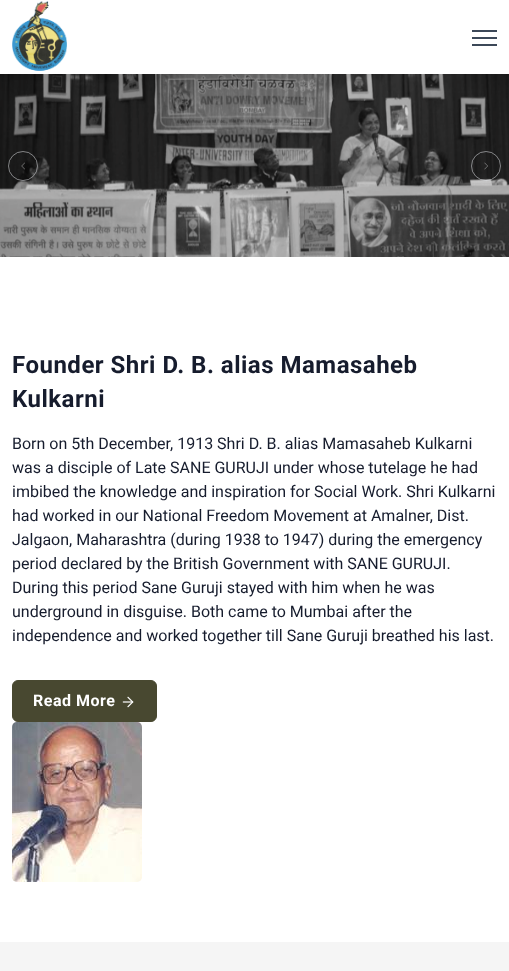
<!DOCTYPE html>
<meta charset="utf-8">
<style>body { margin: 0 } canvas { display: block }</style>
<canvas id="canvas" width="509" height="971"></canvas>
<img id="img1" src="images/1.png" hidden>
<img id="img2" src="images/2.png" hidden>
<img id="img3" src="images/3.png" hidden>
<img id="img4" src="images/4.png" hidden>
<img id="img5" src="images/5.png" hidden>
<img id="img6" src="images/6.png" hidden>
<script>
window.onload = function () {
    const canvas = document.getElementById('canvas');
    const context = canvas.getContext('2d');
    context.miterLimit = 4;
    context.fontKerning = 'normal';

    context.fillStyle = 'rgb(255, 255, 255)';
    context.fillRect(0, 0, 509, 971);
    context.drawImage(document.getElementById('img1'), 12, 1, 55, 70);
    context.fillStyle = 'rgb(60, 72, 88)';
    context.fillRect(472, 30, 25, 2);
    context.fillRect(472, 37, 25, 2);
    context.fillRect(472, 44, 25, 2);
    context.drawImage(document.getElementById('img2'), 0, 74, 509, 183);
    context.beginPath();
    context.arc(23, 166, 14.5, 0, 2 * Math.PI);
    context.strokeStyle = 'rgba(233, 236, 239, 0.5)';
    context.stroke();
    context.drawImage(document.getElementById('img3'), 21, 162, 4, 8);
    context.beginPath();
    context.arc(486, 166, 14.5, 0, 2 * Math.PI);
    context.stroke();
    context.drawImage(document.getElementById('img4'), 484, 162, 4, 8);
    context.fillStyle = 'rgb(72, 72, 48)';
    context.beginPath();
    context.roundRect(12.5, 680.5, 144, 41, 5.5);
    context.fill();
    context.strokeStyle = 'rgb(72, 72, 48)';
    context.stroke();
    context.drawImage(document.getElementById('img5'), 122, 696, 12, 12);
    context.drawImage(document.getElementById('img6'), 12, 722, 130, 160);
    context.fillStyle = 'rgb(245, 245, 245)';
    context.fillRect(0, 942, 509, 29);
    context.letterSpacing = '0.5px';
    context.font = 'bold 24px Roboto';
    context.fillStyle = 'rgb(22, 28, 45)';
    context.fillText('Founder Shri D. B. alias Mamasaheb', 12, 373);
    context.fillText('Kulkarni', 12, 407);
    context.letterSpacing = '0px';
    context.font = '16px Roboto';
    context.fillText('Born on 5th December, 1913 Shri D. B. alias Mamasaheb Kulkarni', 12, 449);
    context.fillText('was a disciple of Late SANE GURUJI under whose tutelage he had', 12, 473);
    context.fillText('imbibed the knowledge and inspiration for Social Work. Shri Kulkarni', 12, 497);
    context.fillText('had worked in our National Freedom Movement at Amalner, Dist.', 12, 521);
    context.fillText('Jalgaon, Maharashtra (during 1938 to 1947) during the emergency', 12, 545);
    context.fillText('period declared by the British Government with SANE GURUJI.', 12, 569);
    context.fillText('During this period Sane Guruji stayed with him when he was', 12, 593);
    context.fillText('underground in disguise. Both came to Mumbai after the', 12, 617);
    context.fillText('independence and worked together till Sane Guruji breathed his last.', 12, 641);
    context.letterSpacing = '0.5px';
    context.font = 'bold 16px Roboto';
    context.fillStyle = 'rgb(255, 255, 255)';
    context.fillText('Read More', 33, 706);
};
</script>
